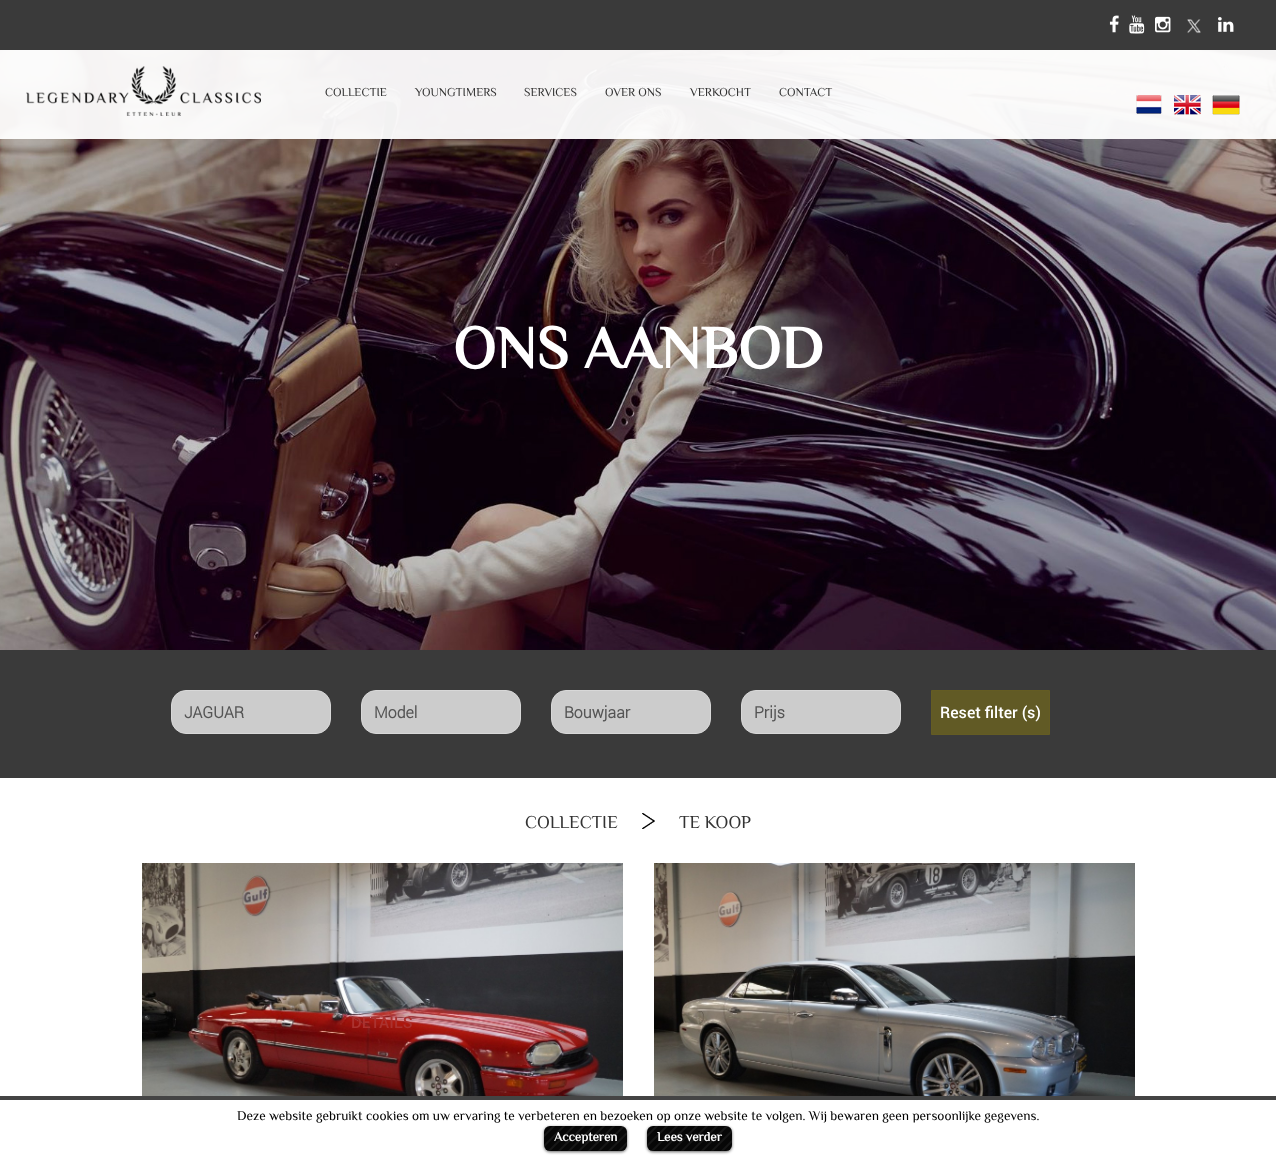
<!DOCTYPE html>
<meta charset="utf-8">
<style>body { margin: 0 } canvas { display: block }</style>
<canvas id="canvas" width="1276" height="1156"></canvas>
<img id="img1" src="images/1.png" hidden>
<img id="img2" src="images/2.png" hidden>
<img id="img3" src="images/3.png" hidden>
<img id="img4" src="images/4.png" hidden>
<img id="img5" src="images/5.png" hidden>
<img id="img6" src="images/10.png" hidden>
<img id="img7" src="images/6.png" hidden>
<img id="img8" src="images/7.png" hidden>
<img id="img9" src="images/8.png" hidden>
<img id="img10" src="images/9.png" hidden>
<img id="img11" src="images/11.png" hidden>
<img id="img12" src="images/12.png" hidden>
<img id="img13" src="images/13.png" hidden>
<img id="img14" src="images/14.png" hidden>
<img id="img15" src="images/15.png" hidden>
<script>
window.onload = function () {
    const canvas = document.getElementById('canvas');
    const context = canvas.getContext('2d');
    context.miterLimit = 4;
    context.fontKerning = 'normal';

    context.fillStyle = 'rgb(255, 255, 255)';
    context.fillRect(0, 0, 1276, 1156);
    context.fillStyle = 'rgb(58, 58, 58)';
    context.fillRect(0, 0, 1276, 50);
    context.drawImage(document.getElementById('img1'), 1109, 15, 10, 18);
    context.drawImage(document.getElementById('img2'), 1129, 15, 16, 19);
    context.drawImage(document.getElementById('img3'), 1155, 16, 16, 17);
    context.drawImage(document.getElementById('img4'), 1187, 19, 14, 15);
    context.drawImage(document.getElementById('img5'), 1218, 17, 16, 15);
    context.drawImage(document.getElementById('img6'), 0, 50, 1276, 600);
    context.fillStyle = 'rgba(255, 255, 255, 0.95)';
    context.fillRect(0, 50, 1276, 89);
    context.drawImage(document.getElementById('img7'), 26, 66, 235, 50);
    context.drawImage(document.getElementById('img8'), 1136, 95, 26, 19);
    context.drawImage(document.getElementById('img9'), 1174, 95, 27, 20);
    context.drawImage(document.getElementById('img10'), 1212, 95, 28, 20);
    context.fillStyle = 'rgb(58, 58, 58)';
    context.fillRect(0, 650, 1276, 128);
    context.fillStyle = 'rgb(204, 204, 204)';
    context.beginPath();
    context.roundRect(171.5, 690.5, 159, 43, 14.5);
    context.fill();
    context.strokeStyle = 'rgb(216, 216, 216)';
    context.stroke();
    context.beginPath();
    context.roundRect(361.5, 690.5, 159, 43, 14.5);
    context.fill();
    context.stroke();
    context.beginPath();
    context.roundRect(551.5, 690.5, 159, 43, 14.5);
    context.fill();
    context.stroke();
    context.beginPath();
    context.roundRect(741.5, 690.5, 159, 43, 14.5);
    context.fill();
    context.stroke();
    context.fillStyle = 'rgb(97, 90, 37)';
    context.beginPath();
    context.rect(931.5, 690.5, 118, 44);
    context.fill();
    context.strokeStyle = 'rgb(100, 92, 35)';
    context.stroke();
    context.drawImage(document.getElementById('img11'), 642, 813, 13, 16);
    context.drawImage(document.getElementById('img12'), 142, 863, 481, 233);
    context.drawImage(document.getElementById('img13'), 654, 863, 481, 233);
    context.fillStyle = 'rgb(68, 68, 68)';
    context.fillRect(0, 1096, 1276, 4);
    context.fillStyle = 'rgba(0, 0, 0, 0.6)';
    context.filter = 'blur(1.5px)';
    context.beginPath();
    context.roundRect(544, 1127, 83, 25, 6);
    context.fill();
    context.filter = 'none';
    context.drawImage(document.getElementById('img14'), 544, 1126, 83, 25);
    context.fillStyle = 'rgba(0, 0, 0, 0.25)';
    context.fillRect(547, 1150, 77, 1);
    context.fillStyle = 'rgba(0, 0, 0, 0.6)';
    context.filter = 'blur(1.5px)';
    context.beginPath();
    context.roundRect(647, 1127, 85, 25, 6);
    context.fill();
    context.filter = 'none';
    context.drawImage(document.getElementById('img15'), 647, 1126, 85, 25);
    context.fillStyle = 'rgba(0, 0, 0, 0.25)';
    context.fillRect(650, 1150, 79, 1);
    context.font = '12px Philosopher';
    context.fillStyle = 'rgb(51, 51, 51)';
    context.fillText('COLLECTIE', 325, 96);
    context.fillText('YOUNGTIMERS', 415, 96);
    context.fillText('SERVICES', 524, 96);
    context.fillText('OVER ONS', 605, 96);
    context.fillText('VERKOCHT', 690, 96);
    context.fillText('CONTACT', 779, 96);
    context.font = 'bold 60px Philosopher';
    context.fillStyle = 'rgb(255, 255, 255)';
    context.fillText('ONS AANBOD', 453, 368);
    context.font = 'bold 16px Roboto';
    context.fillStyle = 'rgb(85, 85, 85)';
    context.fillText('JAGUAR', 184, 718);
    context.fillText('Model', 374, 718);
    context.fillText('Bouwjaar', 564, 718);
    context.fillText('Prijs', 754, 718);
    context.font = '500 16px Roboto';
    context.fillStyle = 'rgb(255, 255, 255)';
    context.fillText('Reset filter (s)', 940, 718);
    context.font = '18px Philosopher';
    context.fillStyle = 'rgb(51, 51, 51)';
    context.fillText('COLLECTIE', 525, 828);
    context.fillText('TE KOOP', 679, 828);
    context.font = '500 16px Roboto';
    context.fillStyle = 'rgb(171, 50, 47)';
    context.fillText('DETAILS', 351, 1028);
    context.font = '13.33px Philosopher';
    context.fillStyle = 'rgb(0, 0, 0)';
    context.fillText('Deze website gebruikt cookies om uw ervaring te verbeteren en bezoeken op onze website te volgen. Wij bewaren geen persoonlijke gegevens.', 237, 1120);
    context.font = 'bold 13px Philosopher';
    context.fillStyle = 'rgb(255, 255, 255)';
    context.fillText('Accepteren', 554, 1141);
    context.fillText('Lees verder', 657, 1141);
};
</script>
